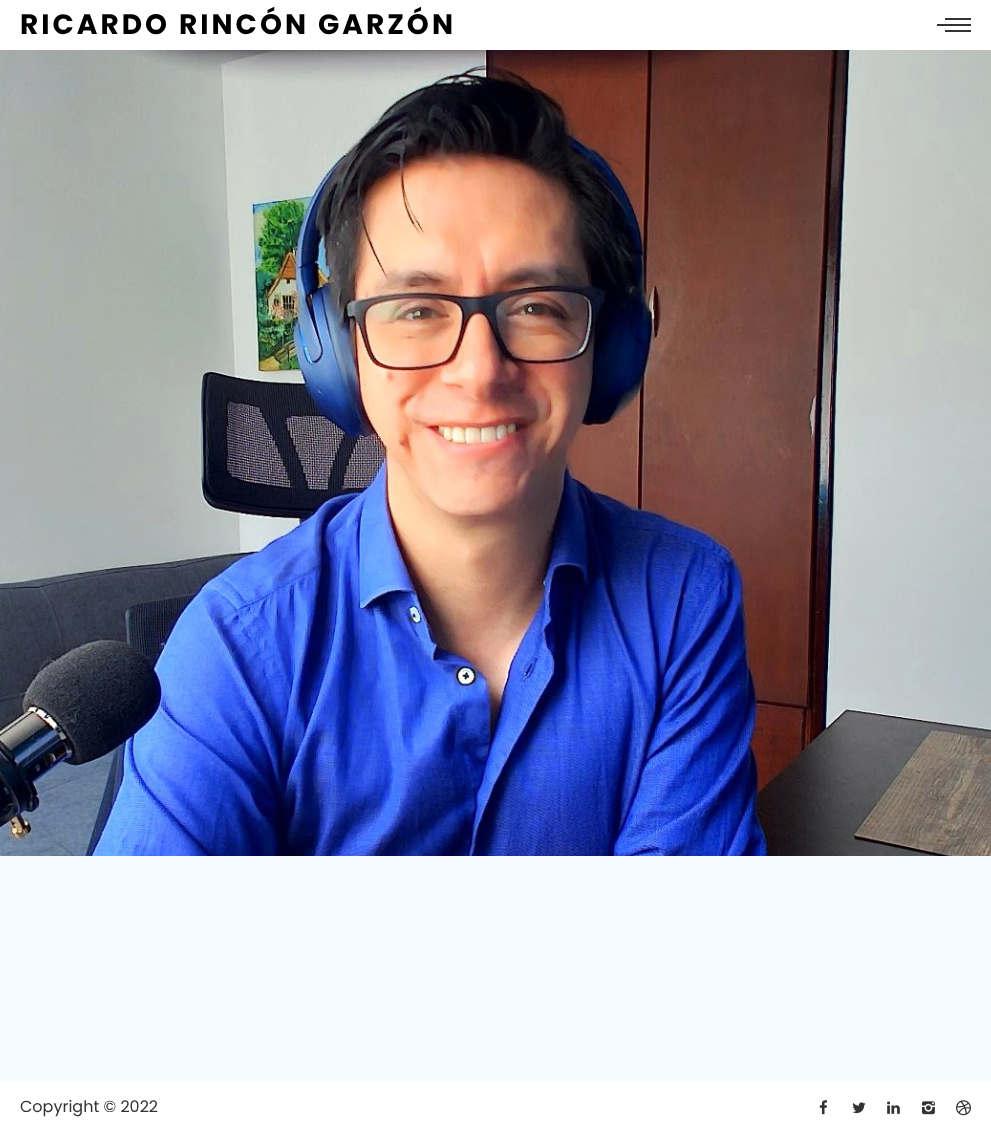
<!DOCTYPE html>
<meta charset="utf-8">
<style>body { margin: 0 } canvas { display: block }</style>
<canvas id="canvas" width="991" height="1132"></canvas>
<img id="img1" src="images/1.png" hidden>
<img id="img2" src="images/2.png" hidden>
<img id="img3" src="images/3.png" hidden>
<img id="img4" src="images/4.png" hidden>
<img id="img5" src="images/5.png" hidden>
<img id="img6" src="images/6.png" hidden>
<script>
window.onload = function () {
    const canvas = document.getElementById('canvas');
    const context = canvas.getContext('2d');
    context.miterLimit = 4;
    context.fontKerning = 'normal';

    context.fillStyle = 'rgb(246, 251, 255)';
    context.fillRect(0, 0, 991, 1132);
    context.fillStyle = 'rgb(255, 255, 255)';
    context.fillRect(0, 0, 991, 50);
    context.fillStyle = 'rgb(51, 51, 51)';
    context.fillRect(945, 18, 26, 2);
    context.fillRect(937, 24, 34, 2);
    context.fillRect(945, 30, 26, 2);
    context.drawImage(document.getElementById('img1'), 0, 50, 991, 806);
    context.fillStyle = 'rgb(255, 255, 255)';
    context.fillRect(0, 1082, 991, 50);
    context.drawImage(document.getElementById('img2'), 819, 1100, 9, 15);
    context.drawImage(document.getElementById('img3'), 852, 1102, 14, 12);
    context.drawImage(document.getElementById('img4'), 887, 1101, 13, 13);
    context.drawImage(document.getElementById('img5'), 922, 1101, 13, 14);
    context.drawImage(document.getElementById('img6'), 956, 1100, 15, 16);
    context.letterSpacing = '3px';
    context.font = 'bold 28px Poppins';
    context.fillStyle = 'rgb(0, 0, 0)';
    context.fillText('RICARDO RINCÓN GARZÓN', 20, 34);
    context.letterSpacing = '0px';
    context.font = '16px Poppins';
    context.fillStyle = 'rgb(51, 51, 51)';
    context.fillText('Copyright © 2022', 20, 1112);
};
</script>
